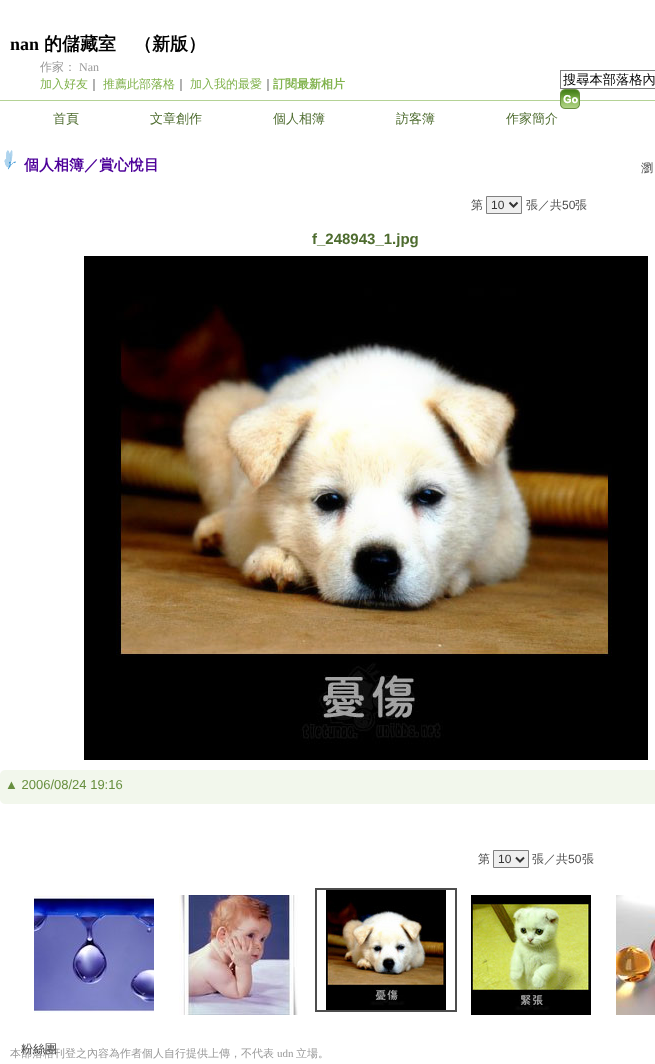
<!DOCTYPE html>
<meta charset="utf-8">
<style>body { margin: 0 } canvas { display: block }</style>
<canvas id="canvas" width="655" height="1064"></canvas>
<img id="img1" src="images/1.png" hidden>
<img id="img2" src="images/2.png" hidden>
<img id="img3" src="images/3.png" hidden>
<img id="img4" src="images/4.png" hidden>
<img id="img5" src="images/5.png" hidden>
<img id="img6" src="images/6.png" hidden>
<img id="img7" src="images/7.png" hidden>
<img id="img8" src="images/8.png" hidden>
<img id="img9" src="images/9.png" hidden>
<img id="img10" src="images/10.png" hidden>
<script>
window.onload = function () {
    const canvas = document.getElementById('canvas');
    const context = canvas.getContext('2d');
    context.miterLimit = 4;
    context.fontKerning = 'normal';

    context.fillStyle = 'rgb(255, 255, 255)';
    context.fillRect(0, 0, 655, 1064);
    context.strokeStyle = 'rgb(128, 128, 128)';
    context.strokeRect(560.5, 70.5, 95, 18);
    context.fillStyle = 'rgb(180, 210, 149)';
    context.fillRect(0, 100, 655, 1);
    context.drawImage(document.getElementById('img1'), 560, 89, 20, 20);
    context.drawImage(document.getElementById('img2'), 4, 150, 12, 20);
    context.fillStyle = 'rgb(239, 239, 239)';
    context.beginPath();
    context.rect(486.5, 196.5, 35, 17);
    context.fill();
    context.stroke();
    context.beginPath();
    context.moveTo(509.5, 202.5);
    context.lineTo(513.5, 206.5);
    context.lineTo(517.5, 202.5);
    context.strokeStyle = 'rgb(51, 51, 51)';
    context.lineWidth = 2;
    context.stroke();
    context.drawImage(document.getElementById('img3'), 84, 256, 564, 504);
    context.drawImage(document.getElementById('img4'), 0, 770, 5, 5);
    context.fillStyle = 'rgb(242, 247, 236)';
    context.fillRect(5, 770, 650, 5);
    context.fillRect(0, 775, 655, 24);
    context.drawImage(document.getElementById('img5'), 0, 799, 5, 5);
    context.fillRect(5, 799, 650, 5);
    context.fillStyle = 'rgb(239, 239, 239)';
    context.beginPath();
    context.rect(493.5, 850.5, 35, 17);
    context.fill();
    context.strokeStyle = 'rgb(128, 128, 128)';
    context.lineWidth = 1;
    context.stroke();
    context.beginPath();
    context.moveTo(516, 857.5);
    context.lineTo(520, 861.5);
    context.lineTo(524, 857.5);
    context.strokeStyle = 'rgb(51, 51, 51)';
    context.lineWidth = 2;
    context.stroke();
    context.drawImage(document.getElementById('img6'), 34, 895, 120, 118);
    context.drawImage(document.getElementById('img7'), 179, 895, 119, 120);
    context.strokeStyle = 'rgb(77, 77, 77)';
    context.strokeRect(316, 889, 140, 122);
    context.drawImage(document.getElementById('img8'), 326, 890, 120, 120);
    context.drawImage(document.getElementById('img9'), 471, 895, 120, 120);
    context.drawImage(document.getElementById('img10'), 616, 895, 39, 120);
    context.font = 'bold 18px Liberation Serif';
    context.fillStyle = 'rgb(0, 0, 0)';
    context.fillText('nan', 10, 50);
    context.font = 'bold 18px WenQuanYi Zen Hei';
    context.fillText('的儲藏室', 44, 50);
    context.fillText('（新版）', 134, 50);
    context.font = '500 12px WenQuanYi Zen Hei';
    context.fillStyle = 'rgb(153, 153, 153)';
    context.fillText('作家：', 40, 71);
    context.font = '12px Liberation Serif';
    context.fillText('Nan', 79, 71);
    context.font = '500 12px WenQuanYi Zen Hei';
    context.fillStyle = 'rgb(129, 179, 77)';
    context.fillText('加入好友', 40, 88);
    context.fillStyle = 'rgb(51, 51, 51)';
    context.fillText('｜', 88, 88);
    context.fillStyle = 'rgb(129, 179, 77)';
    context.fillText('推薦此部落格', 103, 88);
    context.fillStyle = 'rgb(51, 51, 51)';
    context.fillText('｜', 175, 88);
    context.fillStyle = 'rgb(129, 179, 77)';
    context.fillText('加入我的最愛', 190, 88);
    context.fillStyle = 'rgb(51, 51, 51)';
    context.fillText('｜', 262, 88);
    context.font = 'bold 12px WenQuanYi Zen Hei';
    context.fillStyle = 'rgb(129, 179, 77)';
    context.fillText('訂閱最新相片', 273, 88);
    context.font = '500 13.25px WenQuanYi Zen Hei';
    context.fillStyle = 'rgb(0, 0, 0)';
    context.fillText('搜尋本部落格內', 563, 84);
    context.font = '500 13px WenQuanYi Zen Hei';
    context.fillStyle = 'rgb(78, 108, 47)';
    context.fillText('首頁', 53, 123);
    context.fillText('文章創作', 150, 123);
    context.fillText('個人相簿', 273, 123);
    context.fillText('訪客簿', 396, 123);
    context.fillText('作家簡介', 506, 123);
    context.font = 'bold 15px WenQuanYi Zen Hei';
    context.fillStyle = 'rgb(77, 0, 153)';
    context.fillText('個人相簿／賞心悅目', 24, 170);
    context.font = '500 12px WenQuanYi Zen Hei';
    context.fillStyle = 'rgb(77, 77, 77)';
    context.fillText('瀏', 641, 172);
    context.fillText('第', 471, 209);
    context.font = '12px Liberation Sans';
    context.fillStyle = 'rgb(51, 51, 51)';
    context.fillText('10', 491, 209);
    context.font = '500 12px WenQuanYi Zen Hei';
    context.fillStyle = 'rgb(77, 77, 77)';
    context.fillText('張／共', 526, 209);
    context.font = '12px Liberation Sans';
    context.fillText('50', 562, 209);
    context.font = '500 12px WenQuanYi Zen Hei';
    context.fillText('張', 575, 209);
    context.font = 'bold 15px Liberation Sans';
    context.fillStyle = 'rgb(78, 108, 47)';
    context.fillText('f_248943_1.jpg', 312, 244);
    context.font = '13px Liberation Sans';
    context.fillStyle = 'rgb(103, 143, 62)';
    context.fillText('▲ 2006/08/24 19:16', 5, 789);
    context.font = '500 12px WenQuanYi Zen Hei';
    context.fillStyle = 'rgb(77, 77, 77)';
    context.fillText('第', 478, 863);
    context.font = '12px Liberation Sans';
    context.fillStyle = 'rgb(51, 51, 51)';
    context.fillText('10', 498, 863);
    context.font = '500 12px WenQuanYi Zen Hei';
    context.fillStyle = 'rgb(77, 77, 77)';
    context.fillText('張／共', 532, 863);
    context.font = '12px Liberation Sans';
    context.fillText('50', 568, 863);
    context.font = '500 12px WenQuanYi Zen Hei';
    context.fillText('張', 582, 863);
    context.font = '500 11px WenQuanYi Zen Hei';
    context.fillStyle = 'rgb(153, 153, 153)';
    context.fillText('本部落格刊登之內容為作者個人自行提供上傳，不代表', 10, 1057);
    context.font = '11px Liberation Serif';
    context.fillText('udn', 277, 1057);
    context.font = '500 11px WenQuanYi Zen Hei';
    context.fillText('立場。', 296, 1057);
    context.font = '500 12px WenQuanYi Zen Hei';
    context.fillStyle = 'rgb(68, 68, 68)';
    context.fillText('粉絲團', 21, 1053);
};
</script>
